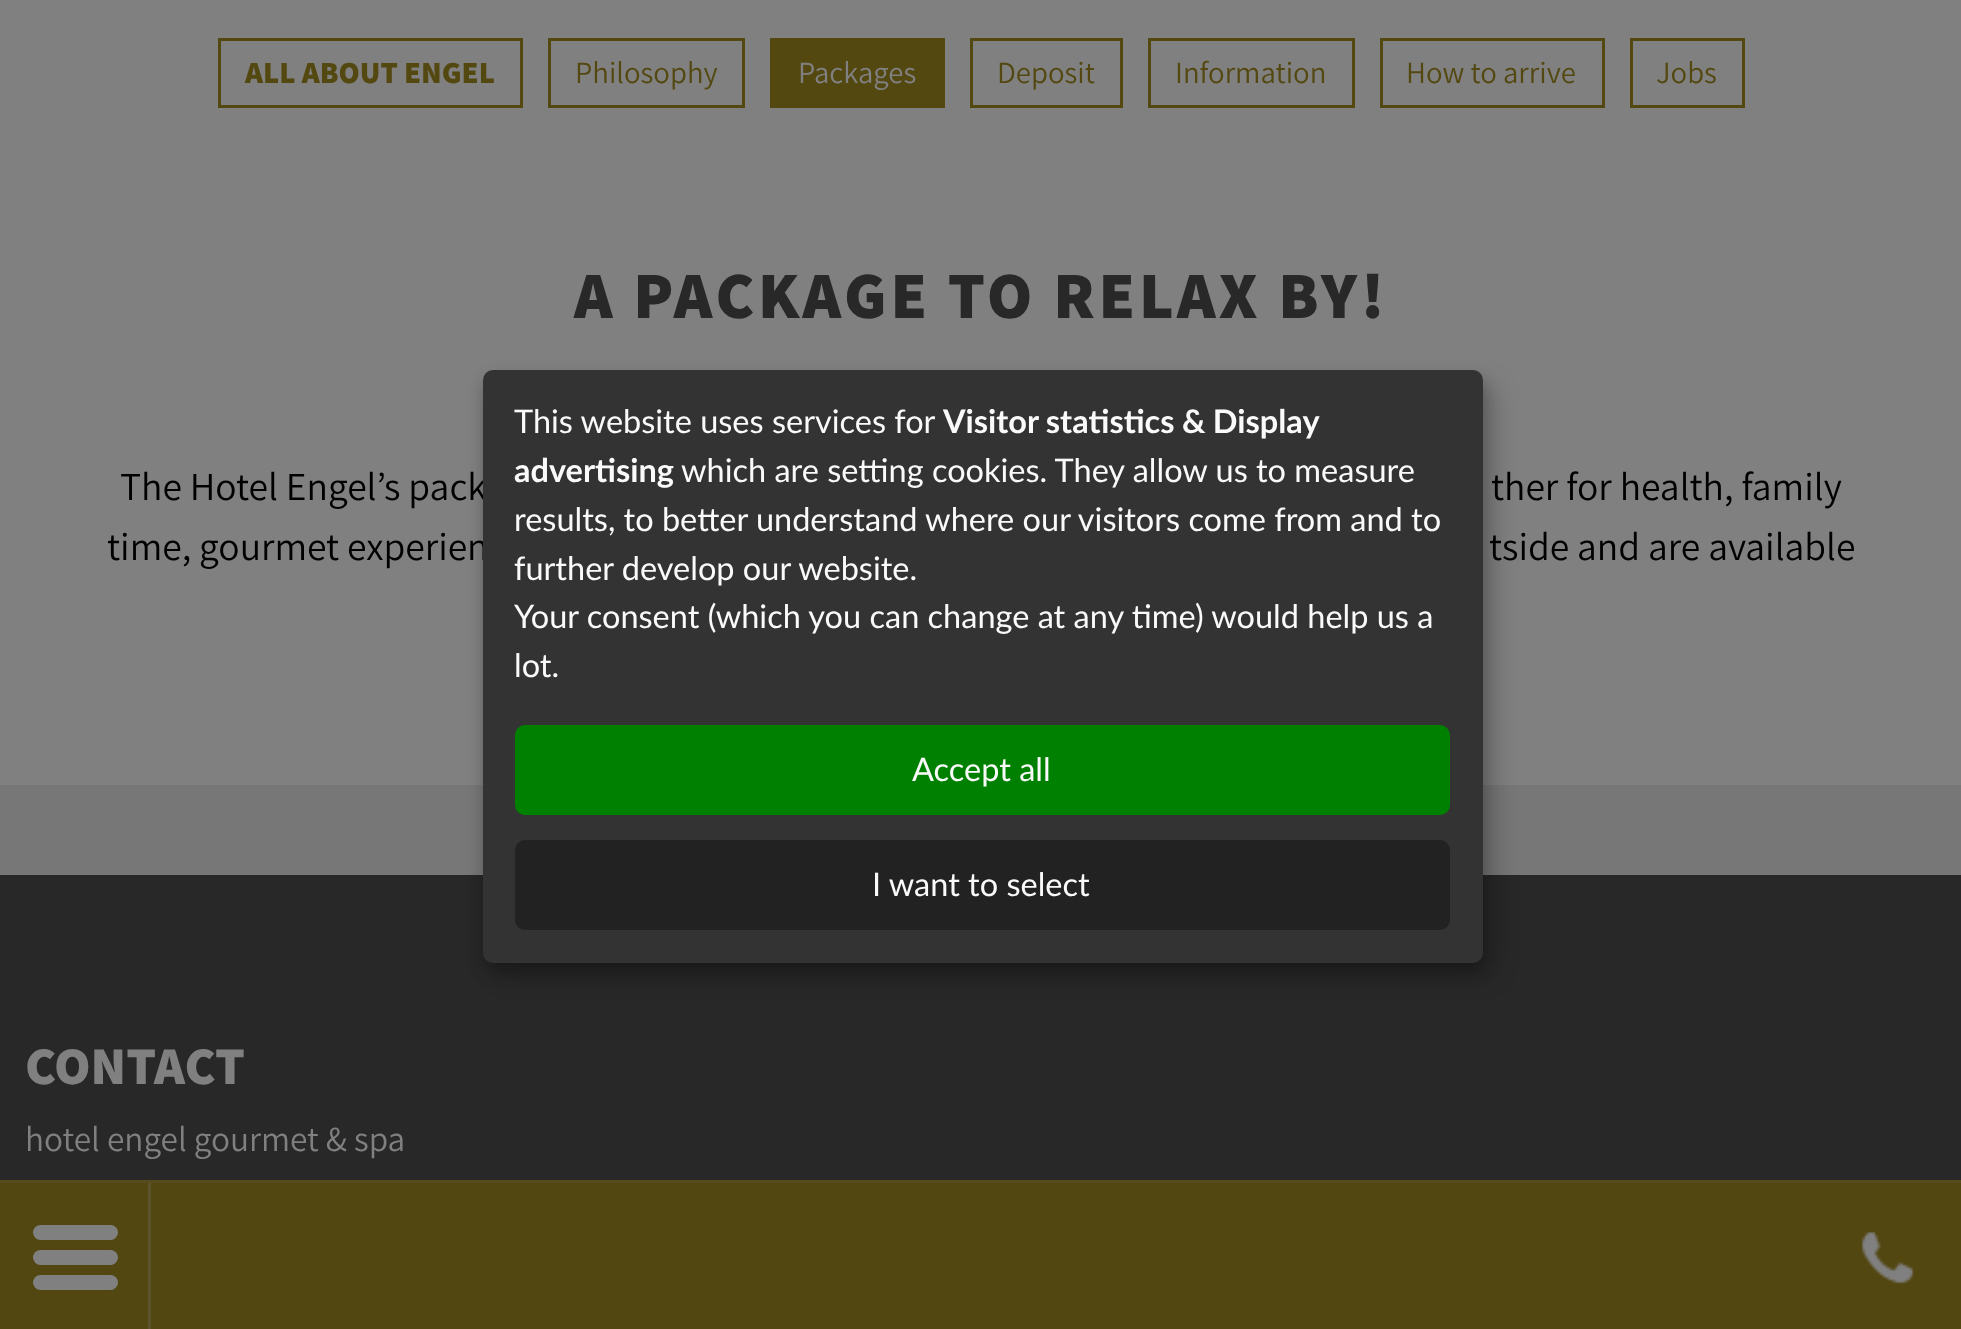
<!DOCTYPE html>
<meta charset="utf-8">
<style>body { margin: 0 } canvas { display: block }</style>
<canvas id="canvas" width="1961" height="1329"></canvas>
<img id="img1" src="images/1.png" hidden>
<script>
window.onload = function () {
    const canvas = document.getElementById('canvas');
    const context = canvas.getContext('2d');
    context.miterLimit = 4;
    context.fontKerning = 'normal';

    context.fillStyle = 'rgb(128, 128, 128)';
    context.fillRect(0, 0, 1961, 1329);
    context.strokeStyle = 'rgb(84, 72, 17)';
    context.lineWidth = 3;
    context.strokeRect(219.5, 39.5, 302, 67);
    context.strokeRect(549.5, 39.5, 194, 67);
    context.fillStyle = 'rgb(84, 72, 17)';
    context.fillRect(770, 38, 175, 70);
    context.strokeRect(971.5, 39.5, 150, 67);
    context.strokeRect(1149.5, 39.5, 204, 67);
    context.strokeRect(1381.5, 39.5, 222, 67);
    context.strokeRect(1631.5, 39.5, 112, 67);
    context.fillStyle = 'rgb(119, 119, 119)';
    context.fillRect(0, 785, 1961, 90);
    context.fillStyle = 'rgb(40, 40, 40)';
    context.fillRect(0, 875, 1961, 454);
    context.fillStyle = 'rgba(0, 0, 0, 0.19)';
    context.filter = 'blur(12.5px)';
    context.beginPath();
    context.roundRect(495, 383, 1000, 592, 10);
    context.fill();
    context.filter = 'none';
    context.fillStyle = 'rgba(0, 0, 0, 0.2)';
    context.filter = 'blur(7.5px)';
    context.beginPath();
    context.roundRect(483, 380, 1000, 593, 10);
    context.fill();
    context.filter = 'none';
    context.fillStyle = 'rgba(84, 72, 17, 0.96)';
    context.fillRect(0, 1180, 1961, 149);
    context.fillStyle = 'rgba(128, 128, 128, 0.1)';
    context.fillRect(0, 1180, 1961, 3);
    context.fillStyle = 'rgba(128, 128, 128, 0.25)';
    context.fillRect(148, 1183, 3, 146);
    context.fillStyle = 'rgb(128, 128, 128)';
    context.beginPath();
    context.roundRect(33, 1225, 85, 15, 7.5);
    context.fill();
    context.beginPath();
    context.roundRect(33, 1250, 85, 15, 7.5);
    context.fill();
    context.beginPath();
    context.roundRect(33, 1275, 85, 15, 7.5);
    context.fill();
    context.drawImage(document.getElementById('img1'), 1861, 1231, 53, 53);
    context.font = '800 30.75px Assistant';
    context.fillStyle = 'rgb(84, 72, 17)';
    context.fillText('ALL ABOUT ENGEL', 245, 83);
    context.font = '30.75px Assistant';
    context.fillText('Philosophy', 575, 83);
    context.fillStyle = 'rgb(128, 128, 128)';
    context.fillText('Packages', 798, 83);
    context.fillStyle = 'rgb(84, 72, 17)';
    context.fillText('Deposit', 997, 83);
    context.fillText('Information', 1175, 83);
    context.fillText('How to arrive', 1406, 83);
    context.fillText('Jobs', 1656, 83);
    context.letterSpacing = '3.75px';
    context.font = '800 66px Assistant';
    context.fillStyle = 'rgb(40, 40, 40)';
    context.fillText('A PACKAGE TO RELAX BY!', 574, 318);
    context.letterSpacing = '0px';
    context.font = '39.5px Assistant';
    context.fillStyle = 'rgb(0, 0, 0)';
    context.fillText('The Hotel Engel’s pack', 120, 500);
    context.fillText('ther for health, family', 1491, 500);
    context.fillText('time, gourmet experien', 107, 560);
    context.fillText('tside and are available', 1489, 560);
    context.font = '800 53px Assistant';
    context.fillStyle = 'rgb(128, 128, 128)';
    context.fillText('CONTACT', 25, 1084);
    context.font = '35.25px Assistant';
    context.fillText('hotel engel gourmet & spa', 25, 1151);
    context.fillStyle = 'rgb(51, 51, 51)';
    context.beginPath();
    context.roundRect(483, 370, 1000, 593, 10);
    context.fill();
    context.font = '32.5px Lato';
    context.fillStyle = 'rgb(250, 250, 250)';
    context.fillText('This website uses services for', 514, 433);
    context.wordSpacing = '-0.5px';
    context.font = 'bold 32.5px Lato';
    context.fillText('Visitor statistics & Display', 943, 433);
    context.wordSpacing = '0px';
    context.fillText('advertising', 514, 482);
    context.font = '32.5px Lato';
    context.fillText('which are setting cookies. They allow us to measure', 681, 482);
    context.fillText('results, to better understand where our visitors come from and to', 514, 531);
    context.fillText('further develop our website.', 514, 580);
    context.fillText('Your consent (which you can change at any time) would help us a', 514, 628);
    context.fillText('lot.', 514, 677);
    context.fillStyle = 'rgb(0, 128, 0)';
    context.beginPath();
    context.roundRect(515, 725, 935, 90, 10);
    context.fill();
    context.fillStyle = 'rgb(250, 250, 250)';
    context.fillText('Accept all', 912, 781);
    context.fillStyle = 'rgb(34, 34, 34)';
    context.beginPath();
    context.roundRect(515, 840, 935, 90, 10);
    context.fill();
    context.fillStyle = 'rgb(250, 250, 250)';
    context.fillText('I want to select', 872, 896);
};
</script>
